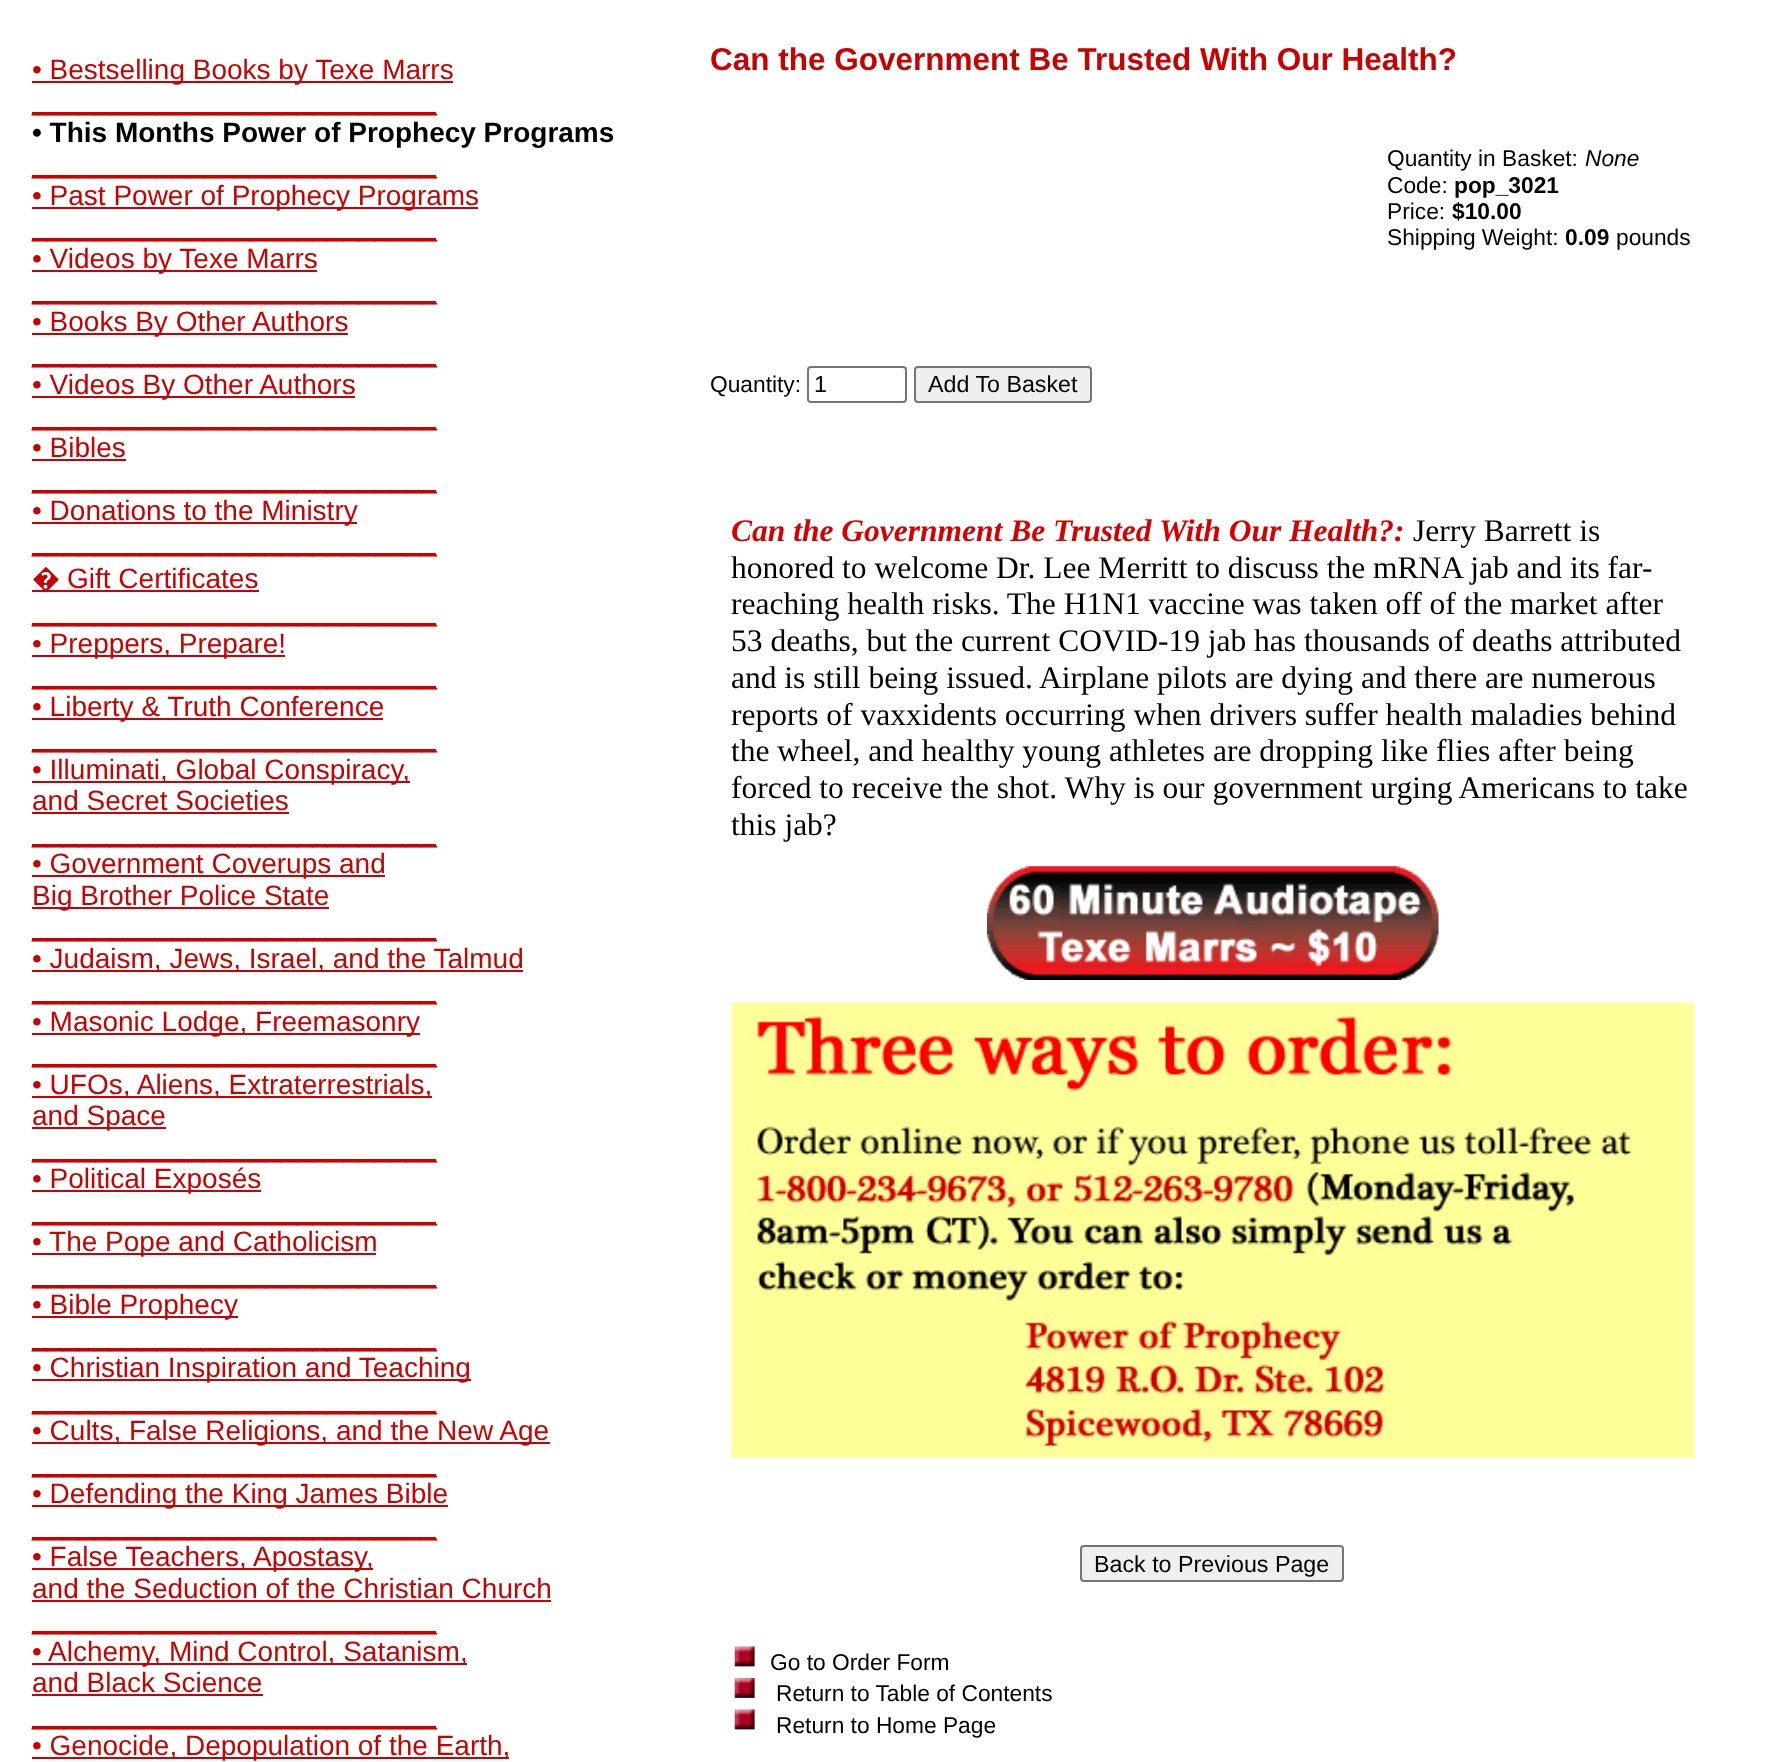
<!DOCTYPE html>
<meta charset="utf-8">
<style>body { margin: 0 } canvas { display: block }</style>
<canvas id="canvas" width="1773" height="1762"></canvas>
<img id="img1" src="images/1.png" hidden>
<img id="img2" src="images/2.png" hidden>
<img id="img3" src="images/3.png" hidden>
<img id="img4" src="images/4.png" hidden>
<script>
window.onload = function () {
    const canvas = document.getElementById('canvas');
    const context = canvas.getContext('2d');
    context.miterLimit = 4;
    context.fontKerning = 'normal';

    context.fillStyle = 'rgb(255, 255, 255)';
    context.fillRect(0, 0, 1773, 1762);
    context.fillStyle = 'rgb(200, 2, 2)';
    context.fillRect(32, 81, 421, 2);
    context.fillRect(32, 112, 404, 2);
    context.fillRect(32, 175, 404, 2);
    context.fillRect(32, 207, 446, 2);
    context.fillRect(32, 238, 404, 2);
    context.fillRect(32, 270, 285, 2);
    context.fillRect(32, 301, 404, 2);
    context.fillRect(32, 333, 316, 2);
    context.fillRect(32, 364, 404, 2);
    context.fillRect(32, 396, 323, 2);
    context.fillRect(32, 427, 404, 2);
    context.fillRect(32, 459, 94, 2);
    context.fillRect(32, 490, 404, 2);
    context.fillRect(32, 522, 325, 2);
    context.fillRect(32, 553, 404, 2);
    context.fillRect(32, 590, 227, 2);
    context.fillRect(32, 623, 404, 2);
    context.fillRect(32, 655, 253, 2);
    context.fillRect(32, 686, 404, 2);
    context.fillRect(32, 718, 351, 2);
    context.fillRect(32, 749, 404, 2);
    context.fillRect(32, 781, 378, 2);
    context.fillRect(32, 812, 257, 2);
    context.fillRect(32, 844, 404, 2);
    context.fillRect(32, 875, 353, 2);
    context.fillRect(32, 907, 297, 2);
    context.fillRect(32, 938, 404, 2);
    context.fillRect(32, 970, 491, 2);
    context.fillRect(32, 1001, 404, 2);
    context.fillRect(32, 1033, 388, 2);
    context.fillRect(32, 1064, 404, 2);
    context.fillRect(32, 1096, 400, 2);
    context.fillRect(32, 1127, 134, 2);
    context.fillRect(32, 1159, 404, 2);
    context.fillRect(32, 1190, 229, 2);
    context.fillRect(32, 1222, 404, 2);
    context.fillRect(32, 1253, 344, 2);
    context.fillRect(32, 1285, 404, 2);
    context.fillRect(32, 1316, 206, 2);
    context.fillRect(32, 1348, 404, 2);
    context.fillRect(32, 1379, 439, 2);
    context.fillRect(32, 1411, 404, 2);
    context.fillRect(32, 1442, 518, 2);
    context.fillRect(32, 1474, 404, 2);
    context.fillRect(32, 1505, 416, 2);
    context.fillRect(32, 1537, 404, 2);
    context.fillRect(32, 1568, 341, 2);
    context.fillRect(32, 1600, 519, 2);
    context.fillRect(32, 1631, 404, 2);
    context.fillRect(32, 1663, 435, 2);
    context.fillRect(32, 1694, 231, 2);
    context.fillRect(32, 1726, 404, 2);
    context.fillRect(32, 1757, 477, 2);
    context.beginPath();
    context.roundRect(808, 367, 98, 35, 3);
    context.strokeStyle = 'rgb(118, 118, 118)';
    context.lineWidth = 2;
    context.stroke();
    context.fillStyle = 'rgb(239, 239, 239)';
    context.beginPath();
    context.roundRect(915, 367, 176, 35, 3);
    context.fill();
    context.stroke();
    context.drawImage(document.getElementById('img1'), 987, 866, 452, 114);
    context.drawImage(document.getElementById('img2'), 731, 1002, 963, 456);
    context.beginPath();
    context.roundRect(1081, 1546, 262, 35, 3);
    context.fill();
    context.stroke();
    context.drawImage(document.getElementById('img3'), 734, 1646, 21, 21);
    context.drawImage(document.getElementById('img4'), 734, 1677, 21, 21);
    context.drawImage(document.getElementById('img3'), 734, 1709, 21, 21);
    context.font = '28px Liberation Sans';
    context.fillStyle = 'rgb(200, 2, 2)';
    context.fillText('• Bestselling Books by Texe Marrs', 32, 79);
    context.fillText('__________________________', 32, 110);
    context.font = 'bold 28px Liberation Sans';
    context.fillStyle = 'rgb(0, 0, 0)';
    context.fillText('• This Months Power of Prophecy Programs', 32, 142);
    context.font = '28px Liberation Sans';
    context.fillStyle = 'rgb(200, 2, 2)';
    context.fillText('__________________________', 32, 173);
    context.fillText('• Past Power of Prophecy Programs', 32, 205);
    context.fillText('__________________________', 32, 236);
    context.fillText('• Videos by Texe Marrs', 32, 268);
    context.fillText('__________________________', 32, 299);
    context.fillText('• Books By Other Authors', 32, 331);
    context.fillText('__________________________', 32, 362);
    context.fillText('• Videos By Other Authors', 32, 394);
    context.fillText('__________________________', 32, 425);
    context.fillText('• Bibles', 32, 457);
    context.fillText('__________________________', 32, 488);
    context.fillText('• Donations to the Ministry', 32, 520);
    context.fillText('__________________________', 32, 551);
    context.font = '28px Noto Sans';
    context.fillText('�', 32, 588);
    context.font = '28px Liberation Sans';
    context.fillText('Gift Certificates', 67, 588);
    context.fillText('__________________________', 32, 621);
    context.fillText('• Preppers, Prepare!', 32, 653);
    context.fillText('__________________________', 32, 684);
    context.fillText('• Liberty & Truth Conference', 32, 716);
    context.fillText('__________________________', 32, 747);
    context.fillText('• Illuminati, Global Conspiracy,', 32, 779);
    context.fillText('and Secret Societies', 32, 810);
    context.fillText('__________________________', 32, 842);
    context.fillText('• Government Coverups and', 32, 873);
    context.fillText('Big Brother Police State', 32, 905);
    context.fillText('__________________________', 32, 936);
    context.fillText('• Judaism, Jews, Israel, and the Talmud', 32, 968);
    context.fillText('__________________________', 32, 999);
    context.fillText('• Masonic Lodge, Freemasonry', 32, 1031);
    context.fillText('__________________________', 32, 1062);
    context.fillText('• UFOs, Aliens, Extraterrestrials,', 32, 1094);
    context.fillText('and Space', 32, 1125);
    context.fillText('__________________________', 32, 1157);
    context.fillText('• Political Exposés', 32, 1188);
    context.fillText('__________________________', 32, 1220);
    context.fillText('• The Pope and Catholicism', 32, 1251);
    context.fillText('__________________________', 32, 1283);
    context.fillText('• Bible Prophecy', 32, 1314);
    context.fillText('__________________________', 32, 1346);
    context.fillText('• Christian Inspiration and Teaching', 32, 1377);
    context.fillText('__________________________', 32, 1409);
    context.fillText('• Cults, False Religions, and the New Age', 32, 1440);
    context.fillText('__________________________', 32, 1472);
    context.fillText('• Defending the King James Bible', 32, 1503);
    context.fillText('__________________________', 32, 1535);
    context.fillText('• False Teachers, Apostasy,', 32, 1566);
    context.fillText('and the Seduction of the Christian Church', 32, 1598);
    context.fillText('__________________________', 32, 1629);
    context.fillText('• Alchemy, Mind Control, Satanism,', 32, 1661);
    context.fillText('and Black Science', 32, 1692);
    context.fillText('__________________________', 32, 1724);
    context.fillText('• Genocide, Depopulation of the Earth,', 32, 1755);
    context.font = 'bold 31.5px Liberation Sans';
    context.fillText('Can the Government Be Trusted With Our Health?', 710, 70);
    context.font = '22.75px Liberation Sans';
    context.fillStyle = 'rgb(0, 0, 0)';
    context.fillText('Quantity in Basket:', 1387, 166);
    context.font = 'italic 22.75px Liberation Sans';
    context.fillText('None', 1585, 166);
    context.font = '22.75px Liberation Sans';
    context.fillText('Code:', 1387, 193);
    context.font = 'bold 22.75px Liberation Sans';
    context.fillText('pop_3021', 1454, 193);
    context.font = '22.75px Liberation Sans';
    context.fillText('Price:', 1387, 219);
    context.font = 'bold 22.75px Liberation Sans';
    context.fillText('$10.00', 1452, 219);
    context.font = '22.75px Liberation Sans';
    context.fillText('Shipping Weight:', 1387, 245);
    context.font = 'bold 22.75px Liberation Sans';
    context.fillText('0.09', 1565, 245);
    context.font = '22.75px Liberation Sans';
    context.fillText('pounds', 1616, 245);
    context.fillText('Quantity:', 710, 392);
    context.font = '23.25px Liberation Sans';
    context.fillText('1', 814, 392);
    context.fillText('Add To Basket', 928, 392);
    context.font = 'italic bold 31.5px Liberation Serif';
    context.fillStyle = 'rgb(215, 0, 0)';
    context.fillText('Can the Government Be Trusted With Our Health?:', 731, 541);
    context.font = '31.5px Liberation Serif';
    context.fillStyle = 'rgb(0, 0, 0)';
    context.fillText('Jerry Barrett is', 1413, 541);
    context.fillText('honored to welcome Dr. Lee Merritt to discuss the mRNA jab and its far-', 731, 578);
    context.fillText('reaching health risks. The H1N1 vaccine was taken off of the market after', 731, 614);
    context.fillText('53 deaths, but the current COVID-19 jab has thousands of deaths attributed', 731, 651);
    context.fillText('and is still being issued. Airplane pilots are dying and there are numerous', 731, 688);
    context.fillText('reports of vaxxidents occurring when drivers suffer health maladies behind', 731, 725);
    context.fillText('the wheel, and healthy young athletes are dropping like flies after being', 731, 761);
    context.fillText('forced to receive the shot. Why is our government urging Americans to take', 731, 798);
    context.fillText('this jab?', 731, 835);
    context.font = '23.25px Liberation Sans';
    context.fillText('Back to Previous Page', 1094, 1572);
    context.font = '22.75px Liberation Sans';
    context.fillText('Go to Order Form', 770, 1670);
    context.fillText('Return to Table of Contents', 776, 1701);
    context.fillText('Return to Home Page', 776, 1733);
};
</script>
